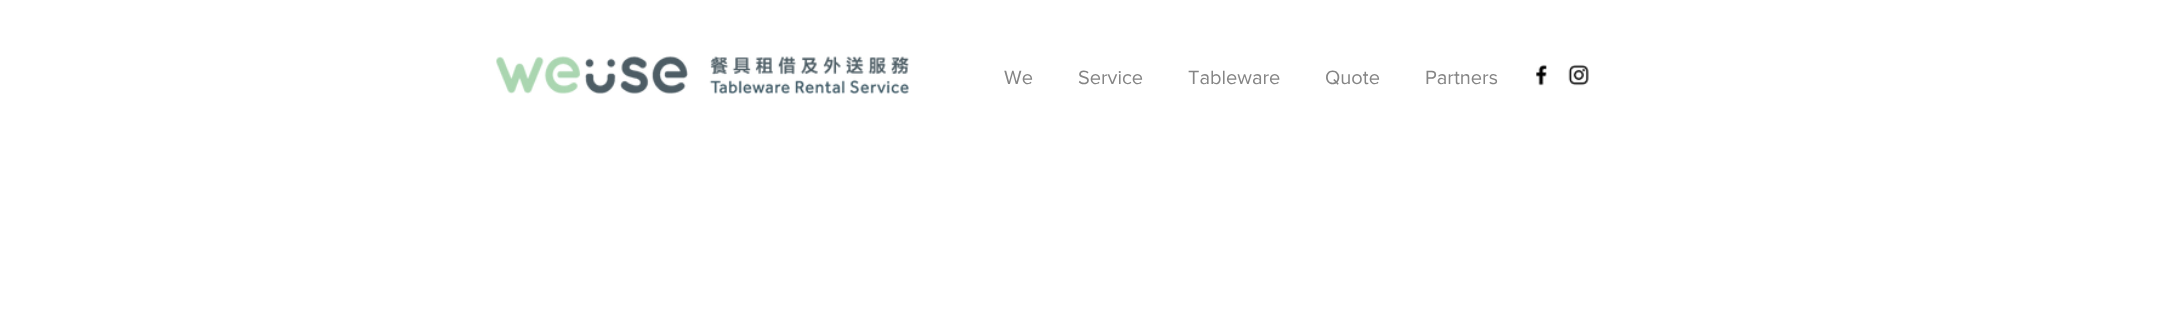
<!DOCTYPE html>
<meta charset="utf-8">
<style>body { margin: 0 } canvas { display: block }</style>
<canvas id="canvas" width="2170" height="318"></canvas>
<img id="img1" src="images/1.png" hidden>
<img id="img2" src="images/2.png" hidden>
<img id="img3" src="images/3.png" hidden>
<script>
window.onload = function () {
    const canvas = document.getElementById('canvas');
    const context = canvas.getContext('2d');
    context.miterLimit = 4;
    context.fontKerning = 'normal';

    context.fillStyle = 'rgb(255, 255, 255)';
    context.fillRect(0, 0, 2170, 318);
    context.drawImage(document.getElementById('img1'), 496, 56, 413, 38);
    context.drawImage(document.getElementById('img2'), 1536, 64, 11, 22);
    context.drawImage(document.getElementById('img3'), 1568, 64, 21, 22);
    context.font = '20px "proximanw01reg"';
    context.fillStyle = 'rgb(133, 133, 133)';
    context.fillText('We', 1004, 84);
    context.fillText('Service', 1078, 84);
    context.fillText('Tableware', 1188, 84);
    context.fillText('Quote', 1325, 84);
    context.fillText('Partners', 1425, 84);
};
</script>
